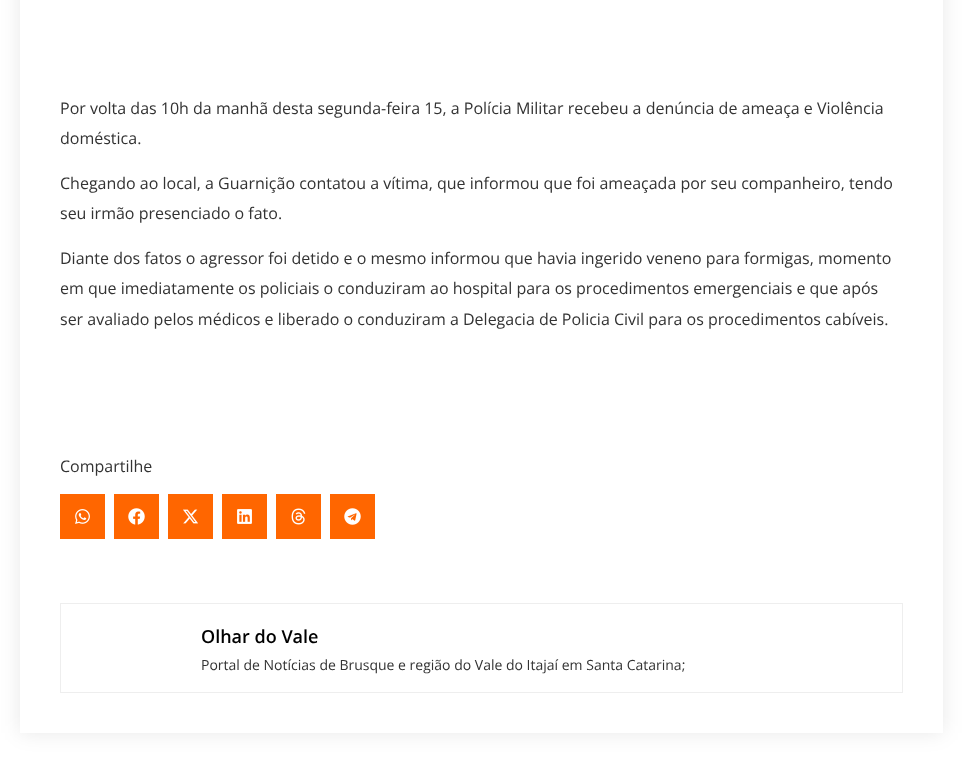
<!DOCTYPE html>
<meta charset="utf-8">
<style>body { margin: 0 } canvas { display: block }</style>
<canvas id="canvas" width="963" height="772"></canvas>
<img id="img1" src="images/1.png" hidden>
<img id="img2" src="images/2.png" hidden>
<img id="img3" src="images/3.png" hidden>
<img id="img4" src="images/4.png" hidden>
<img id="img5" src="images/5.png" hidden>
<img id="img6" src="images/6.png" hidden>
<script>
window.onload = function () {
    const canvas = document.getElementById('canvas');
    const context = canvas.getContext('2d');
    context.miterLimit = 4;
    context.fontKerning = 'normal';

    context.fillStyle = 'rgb(255, 255, 255)';
    context.fillRect(0, 0, 963, 772);
    context.save();
    context.beginPath();
    context.moveTo(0, 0);
    context.lineTo(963, 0);
    context.lineTo(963, 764);
    context.lineTo(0, 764);
    context.closePath();
    context.moveTo(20, -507);
    context.lineTo(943, -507);
    context.lineTo(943, 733);
    context.lineTo(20, 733);
    context.closePath();
    context.clip('evenodd');
    context.fillStyle = 'rgba(0, 0, 0, 0.09)';
    context.filter = 'blur(10px)';
    context.beginPath();
    context.rect(20, -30, 923, 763);
    context.fill();
    context.filter = 'none';
    context.restore();
    context.fillStyle = 'rgb(255, 102, 0)';
    context.fillRect(60, 494, 45, 45);
    context.drawImage(document.getElementById('img1'), 75, 509, 15, 15);
    context.fillRect(114, 494, 45, 45);
    context.drawImage(document.getElementById('img2'), 128, 508, 17, 17);
    context.fillRect(168, 494, 45, 45);
    context.drawImage(document.getElementById('img3'), 183, 509, 15, 15);
    context.fillRect(222, 494, 45, 45);
    context.drawImage(document.getElementById('img4'), 237, 509, 15, 15);
    context.fillRect(276, 494, 45, 45);
    context.drawImage(document.getElementById('img5'), 291, 508, 15, 17);
    context.fillRect(330, 494, 45, 45);
    context.drawImage(document.getElementById('img6'), 344, 508, 17, 17);
    context.strokeStyle = 'rgb(238, 238, 238)';
    context.strokeRect(60.5, 603.5, 842, 89);
    context.font = '16px Open Sans';
    context.fillStyle = 'rgb(51, 51, 51)';
    context.fillText('Por volta das 10h da manhã desta segunda-feira 15, a Polícia Militar recebeu a denúncia de ameaça e Violência', 60, 114);
    context.fillText('doméstica.', 60, 144);
    context.fillText('Chegando ao local, a Guarnição contatou a vítima, que informou que foi ameaçada por seu companheiro, tendo', 60, 189);
    context.fillText('seu irmão presenciado o fato.', 60, 219);
    context.fillText('Diante dos fatos o agressor foi detido e o mesmo informou que havia ingerido veneno para formigas, momento', 60, 264);
    context.fillText('em que imediatamente os policiais o conduziram ao hospital para os procedimentos emergenciais e que após', 60, 294);
    context.fillText('ser avaliado pelos médicos e liberado o conduziram a Delegacia de Policia Civil para os procedimentos cabíveis.', 60, 325);
    context.fillText('Compartilhe', 60, 472);
    context.font = '600 18px Open Sans';
    context.fillStyle = 'rgb(0, 0, 0)';
    context.fillText('Olhar do Vale', 201, 643);
    context.font = '14px Open Sans';
    context.fillStyle = 'rgb(51, 51, 51)';
    context.fillText('Portal de Notícias de Brusque e região do Vale do Itajaí em Santa Catarina;', 201, 670);
};
</script>
